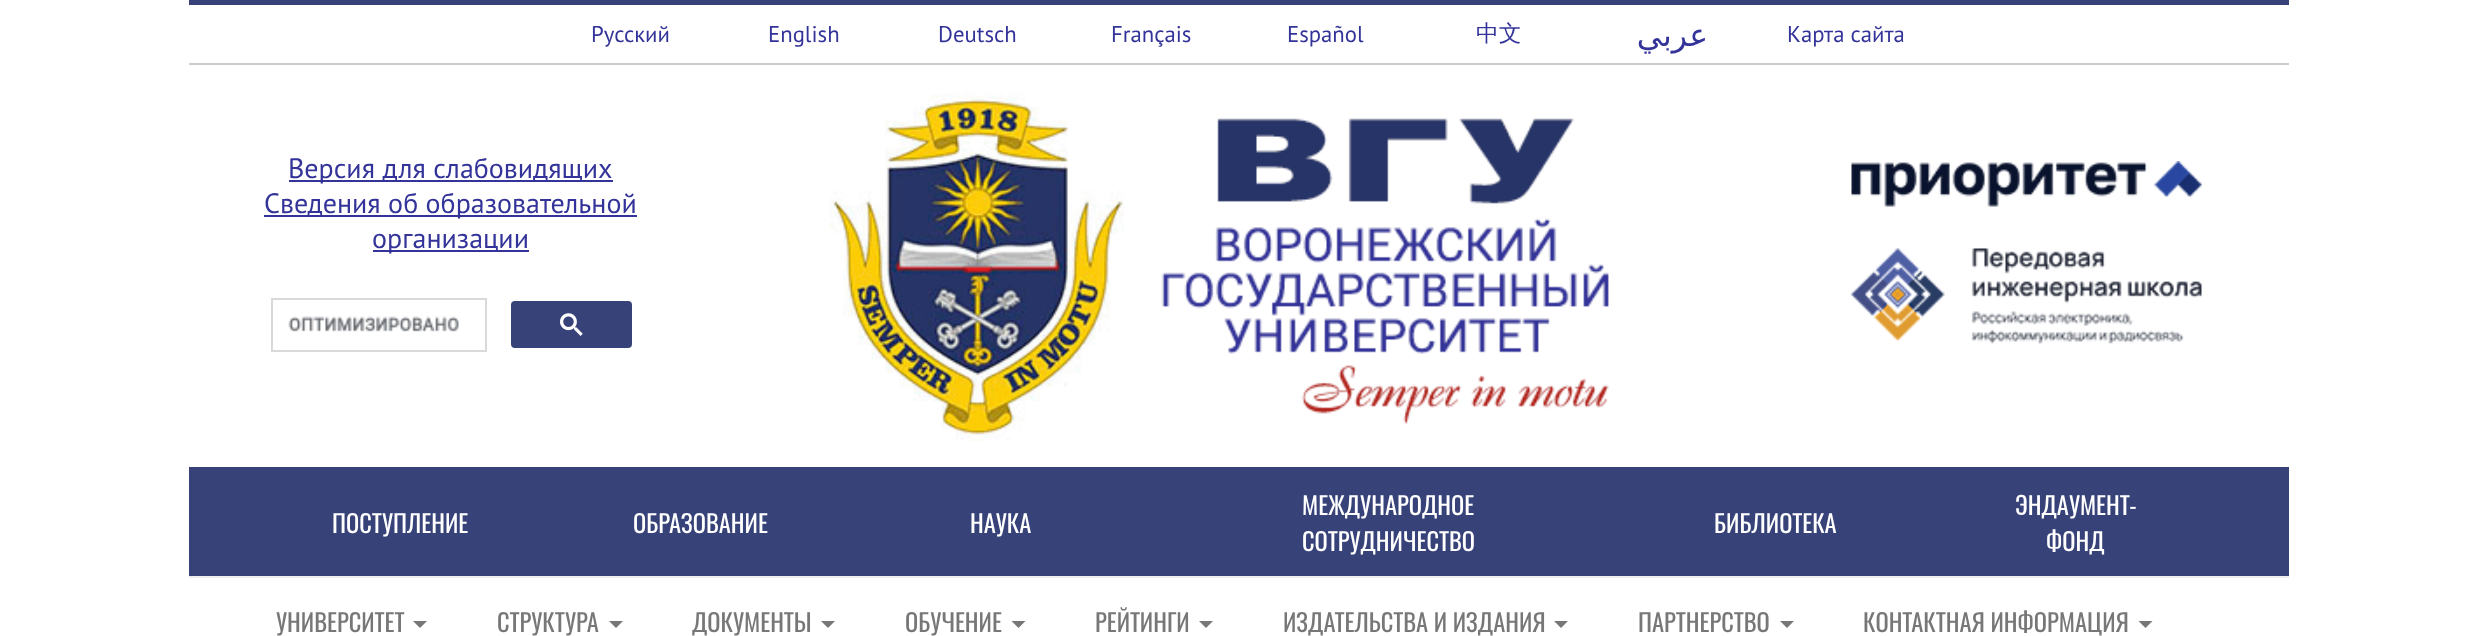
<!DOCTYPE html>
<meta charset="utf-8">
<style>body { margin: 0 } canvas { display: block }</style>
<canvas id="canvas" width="2476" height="636"></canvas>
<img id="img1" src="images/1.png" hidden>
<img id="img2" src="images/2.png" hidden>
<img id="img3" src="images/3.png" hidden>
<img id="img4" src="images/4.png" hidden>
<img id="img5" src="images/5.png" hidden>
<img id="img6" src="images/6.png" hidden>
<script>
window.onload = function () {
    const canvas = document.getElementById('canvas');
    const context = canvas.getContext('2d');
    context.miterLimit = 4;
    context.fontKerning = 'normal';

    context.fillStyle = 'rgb(255, 255, 255)';
    context.fillRect(0, 0, 2476, 636);
    context.fillStyle = 'rgb(55, 66, 120)';
    context.fillRect(189, 0, 2100, 5);
    context.fillStyle = 'rgb(204, 204, 204)';
    context.fillRect(189, 63, 2100, 2);
    context.fillStyle = 'rgb(51, 51, 153)';
    context.fillRect(289, 180, 324, 2);
    context.fillRect(264, 215, 373, 2);
    context.fillRect(373, 250, 156, 2);
    context.strokeStyle = 'rgb(217, 217, 217)';
    context.lineWidth = 2;
    context.strokeRect(272, 299, 214, 52);
    context.drawImage(document.getElementById('img1'), 288, 316, 171, 16);
    context.fillStyle = 'rgb(55, 66, 120)';
    context.beginPath();
    context.roundRect(512, 302, 119, 45, 3);
    context.fill();
    context.strokeStyle = 'rgb(55, 66, 120)';
    context.stroke();
    context.drawImage(document.getElementById('img2'), 560, 313, 23, 23);
    context.drawImage(document.getElementById('img3'), 829, 93, 295, 348);
    context.drawImage(document.getElementById('img4'), 1161, 118, 448, 306);
    context.drawImage(document.getElementById('img5'), 1851, 161, 351, 46);
    context.drawImage(document.getElementById('img6'), 1851, 248, 351, 96);
    context.fillRect(189, 467, 2100, 109);
    context.fillStyle = 'rgb(238, 238, 238)';
    context.fillRect(189, 576, 2100, 2);
    context.fillStyle = 'rgb(119, 119, 119)';
    context.beginPath();
    context.moveTo(413, 621);
    context.lineTo(427, 621);
    context.lineTo(420, 628);
    context.closePath();
    context.fill();
    context.beginPath();
    context.moveTo(609, 621);
    context.lineTo(623, 621);
    context.lineTo(616, 628);
    context.closePath();
    context.fill();
    context.beginPath();
    context.moveTo(821, 621);
    context.lineTo(835, 621);
    context.lineTo(828, 628);
    context.closePath();
    context.fill();
    context.beginPath();
    context.moveTo(1011.5, 621);
    context.lineTo(1025.5, 621);
    context.lineTo(1018.5, 628);
    context.closePath();
    context.fill();
    context.beginPath();
    context.moveTo(1199, 621);
    context.lineTo(1213, 621);
    context.lineTo(1206, 628);
    context.closePath();
    context.fill();
    context.beginPath();
    context.moveTo(1554, 621);
    context.lineTo(1568, 621);
    context.lineTo(1561, 628);
    context.closePath();
    context.fill();
    context.beginPath();
    context.moveTo(1780, 621);
    context.lineTo(1794, 621);
    context.lineTo(1787, 628);
    context.closePath();
    context.fill();
    context.beginPath();
    context.moveTo(2138.5, 621);
    context.lineTo(2152.5, 621);
    context.lineTo(2145.5, 628);
    context.closePath();
    context.fill();
    context.font = '22.75px PT Sans';
    context.fillStyle = 'rgb(51, 51, 153)';
    context.fillText('Русский', 591, 42);
    context.fillText('English', 768, 42);
    context.fillText('Deutsch', 938, 42);
    context.fillText('Français', 1111, 42);
    context.fillText('Español', 1287, 42);
    context.font = '500 22.75px WenQuanYi Zen Hei';
    context.fillText('中文', 1476, 41);
    context.direction = 'rtl';
    context.font = '31.5px DejaVu Sans';
    context.fillText('عربي', 1708, 46);
    context.direction = 'ltr';
    context.font = '22.75px PT Sans';
    context.fillText('Карта сайта', 1787, 42);
    context.font = '28px PT Sans';
    context.fillText('Версия для слабовидящих', 288, 178);
    context.fillText('Сведения об образовательной', 264, 213);
    context.fillText('организации', 372, 248);
    context.font = '24.5px Oswald';
    context.fillStyle = 'rgb(255, 255, 255)';
    context.fillText('ПОСТУПЛЕНИЕ', 332, 533);
    context.fillText('ОБРАЗОВАНИЕ', 633, 533);
    context.fillText('НАУКА', 970, 533);
    context.fillText('МЕЖДУНАРОДНОЕ', 1302, 515);
    context.fillText('СОТРУДНИЧЕСТВО', 1302, 551);
    context.fillText('БИБЛИОТЕКА', 1714, 533);
    context.fillText('ЭНДАУМЕНТ-', 2015, 515);
    context.fillText('ФОНД', 2046, 551);
    context.fillStyle = 'rgb(119, 119, 119)';
    context.fillText('УНИВЕРСИТЕТ', 276, 632);
    context.fillText('СТРУКТУРА', 497, 632);
    context.fillText('ДОКУМЕНТЫ', 692, 632);
    context.fillText('ОБУЧЕНИЕ', 905, 632);
    context.fillText('РЕЙТИНГИ', 1095, 632);
    context.fillText('ИЗДАТЕЛЬСТВА И ИЗДАНИЯ', 1283, 632);
    context.fillText('ПАРТНЕРСТВО', 1638, 632);
    context.fillText('КОНТАКТНАЯ ИНФОРМАЦИЯ', 1863, 632);
};
</script>
